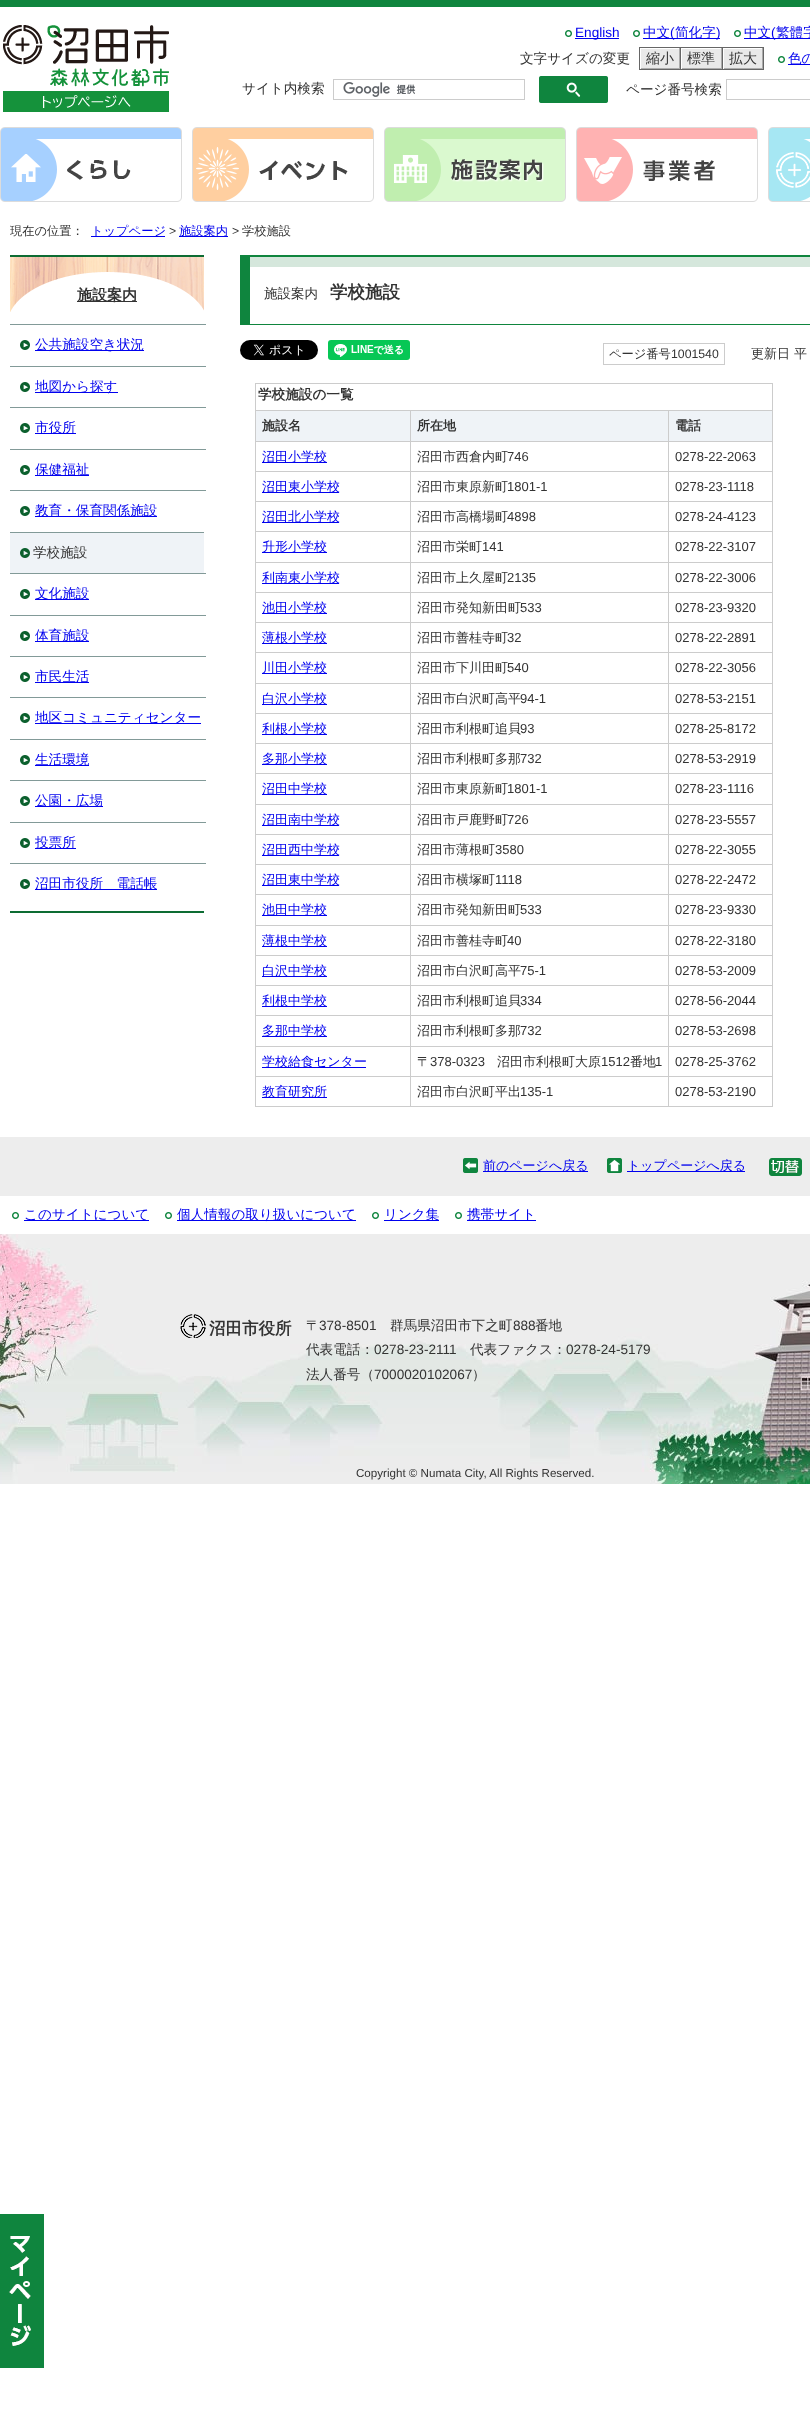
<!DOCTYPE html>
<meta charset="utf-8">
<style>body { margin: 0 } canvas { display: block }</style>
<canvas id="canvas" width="810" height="2418"></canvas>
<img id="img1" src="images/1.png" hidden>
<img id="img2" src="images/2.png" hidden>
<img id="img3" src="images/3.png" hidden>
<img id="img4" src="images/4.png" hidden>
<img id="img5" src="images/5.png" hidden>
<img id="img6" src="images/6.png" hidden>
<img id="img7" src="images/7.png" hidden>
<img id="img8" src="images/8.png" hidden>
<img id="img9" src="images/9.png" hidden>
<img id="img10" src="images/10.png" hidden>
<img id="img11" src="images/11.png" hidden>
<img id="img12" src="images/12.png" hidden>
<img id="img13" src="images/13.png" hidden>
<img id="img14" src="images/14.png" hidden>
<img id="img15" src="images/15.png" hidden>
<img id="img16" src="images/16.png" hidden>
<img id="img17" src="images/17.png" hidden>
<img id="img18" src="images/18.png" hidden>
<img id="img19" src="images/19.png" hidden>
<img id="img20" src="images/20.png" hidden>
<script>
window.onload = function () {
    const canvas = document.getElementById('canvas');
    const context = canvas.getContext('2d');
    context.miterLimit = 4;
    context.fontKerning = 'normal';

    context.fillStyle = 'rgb(255, 255, 255)';
    context.fillRect(0, 0, 810, 2418);
    context.fillStyle = 'rgb(237, 237, 237)';
    context.fillRect(0, 1137, 810, 59);
    context.fillStyle = 'rgb(15, 133, 62)';
    context.fillRect(0, 0, 810, 7);
    context.drawImage(document.getElementById('img1'), 3, 25, 166, 87);
    context.drawImage(document.getElementById('img2'), 565, 30, 7, 7);
    context.fillStyle = 'rgb(0, 0, 238)';
    context.fillRect(575, 38, 44, 1);
    context.drawImage(document.getElementById('img2'), 633, 30, 7, 7);
    context.fillRect(643, 38, 77, 1);
    context.drawImage(document.getElementById('img2'), 734, 30, 7, 7);
    context.fillRect(744, 38, 66, 1);
    context.fillStyle = 'rgb(102, 102, 102)';
    context.fillRect(639, 47, 83, 1);
    context.fillRect(639, 69, 83, 1);
    context.fillRect(639, 47, 1, 23);
    context.fillStyle = 'rgb(233, 233, 233)';
    context.fillRect(641, 49, 38, 19);
    context.fillStyle = 'rgb(171, 171, 171)';
    context.fillRect(679, 48, 1, 21);
    context.fillRect(640, 68, 40, 1);
    context.fillStyle = 'rgb(255, 255, 255)';
    context.fillRect(640, 68, 1, 1);
    context.fillStyle = 'rgb(102, 102, 102)';
    context.fillRect(680, 47, 1, 23);
    context.fillStyle = 'rgb(233, 233, 233)';
    context.fillRect(682, 49, 39, 19);
    context.fillStyle = 'rgb(171, 171, 171)';
    context.fillRect(721, 48, 1, 21);
    context.fillRect(681, 68, 41, 1);
    context.fillStyle = 'rgb(255, 255, 255)';
    context.fillRect(681, 68, 1, 1);
    context.strokeStyle = 'rgb(102, 102, 102)';
    context.strokeRect(722.5, 47.5, 41, 22);
    context.fillStyle = 'rgb(233, 233, 233)';
    context.fillRect(724, 49, 38, 19);
    context.fillStyle = 'rgb(171, 171, 171)';
    context.fillRect(762, 48, 1, 21);
    context.fillRect(723, 68, 40, 1);
    context.fillStyle = 'rgb(255, 255, 255)';
    context.fillRect(723, 68, 1, 1);
    context.drawImage(document.getElementById('img2'), 778, 56, 7, 7);
    context.fillStyle = 'rgb(0, 0, 238)';
    context.fillRect(788, 64, 22, 1);
    context.drawImage(document.getElementById('img3'), 343, 82, 73, 15);
    context.strokeStyle = 'rgb(204, 204, 204)';
    context.strokeRect(333.5, 79.5, 191, 20);
    context.drawImage(document.getElementById('img4'), 539, 76, 69, 27);
    context.strokeRect(726.5, 79.5, 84, 20);
    context.drawImage(document.getElementById('img5'), 0, 127, 182, 75);
    context.drawImage(document.getElementById('img6'), 192, 127, 182, 75);
    context.drawImage(document.getElementById('img7'), 384, 127, 182, 75);
    context.drawImage(document.getElementById('img8'), 576, 127, 182, 75);
    context.drawImage(document.getElementById('img9'), 768, 127, 42, 75);
    context.fillRect(91, 236, 74, 1);
    context.fillRect(179, 236, 49, 1);
    context.fillStyle = 'rgb(13, 108, 51)';
    context.fillRect(10, 255, 194, 2);
    context.fillRect(10, 911, 194, 2);
    context.drawImage(document.getElementById('img10'), 10, 257, 194, 55);
    context.fillStyle = 'rgb(51, 51, 51)';
    context.fillRect(77, 301, 60, 1);
    context.drawImage(document.getElementById('img11'), 20, 340, 10, 10);
    context.fillStyle = 'rgb(130, 154, 152)';
    context.fillRect(10, 324, 196, 1);
    context.fillStyle = 'rgb(0, 0, 238)';
    context.fillRect(35, 350, 109, 1);
    context.drawImage(document.getElementById('img11'), 20, 382, 10, 10);
    context.fillStyle = 'rgb(130, 154, 152)';
    context.fillRect(10, 366, 196, 1);
    context.fillStyle = 'rgb(0, 0, 238)';
    context.fillRect(35, 392, 83, 1);
    context.drawImage(document.getElementById('img11'), 20, 423, 10, 10);
    context.fillStyle = 'rgb(130, 154, 152)';
    context.fillRect(10, 407, 196, 1);
    context.fillStyle = 'rgb(0, 0, 238)';
    context.fillRect(35, 433, 41, 1);
    context.drawImage(document.getElementById('img11'), 20, 465, 10, 10);
    context.fillStyle = 'rgb(130, 154, 152)';
    context.fillRect(10, 449, 196, 1);
    context.fillStyle = 'rgb(0, 0, 238)';
    context.fillRect(35, 475, 54, 1);
    context.drawImage(document.getElementById('img11'), 20, 506, 10, 10);
    context.fillStyle = 'rgb(130, 154, 152)';
    context.fillRect(10, 490, 196, 1);
    context.fillStyle = 'rgb(0, 0, 238)';
    context.fillRect(35, 516, 122, 1);
    context.fillStyle = 'rgb(239, 243, 247)';
    context.fillRect(10, 533, 194, 40);
    context.drawImage(document.getElementById('img12'), 20, 548, 10, 10);
    context.fillStyle = 'rgb(130, 154, 152)';
    context.fillRect(10, 532, 194, 1);
    context.drawImage(document.getElementById('img11'), 20, 589, 10, 10);
    context.fillRect(10, 573, 196, 1);
    context.fillStyle = 'rgb(0, 0, 238)';
    context.fillRect(35, 599, 54, 1);
    context.drawImage(document.getElementById('img11'), 20, 631, 10, 10);
    context.fillStyle = 'rgb(130, 154, 152)';
    context.fillRect(10, 615, 196, 1);
    context.fillStyle = 'rgb(0, 0, 238)';
    context.fillRect(35, 641, 54, 1);
    context.drawImage(document.getElementById('img11'), 20, 672, 10, 10);
    context.fillStyle = 'rgb(130, 154, 152)';
    context.fillRect(10, 656, 196, 1);
    context.fillStyle = 'rgb(0, 0, 238)';
    context.fillRect(35, 682, 54, 1);
    context.drawImage(document.getElementById('img11'), 20, 713, 10, 10);
    context.fillStyle = 'rgb(130, 154, 152)';
    context.fillRect(10, 697, 196, 1);
    context.fillStyle = 'rgb(0, 0, 238)';
    context.fillRect(35, 723, 166, 1);
    context.drawImage(document.getElementById('img11'), 20, 755, 10, 10);
    context.fillStyle = 'rgb(130, 154, 152)';
    context.fillRect(10, 739, 196, 1);
    context.fillStyle = 'rgb(0, 0, 238)';
    context.fillRect(35, 765, 54, 1);
    context.drawImage(document.getElementById('img11'), 20, 796, 10, 10);
    context.fillStyle = 'rgb(130, 154, 152)';
    context.fillRect(10, 780, 196, 1);
    context.fillStyle = 'rgb(0, 0, 238)';
    context.fillRect(35, 806, 68, 1);
    context.drawImage(document.getElementById('img11'), 20, 838, 10, 10);
    context.fillStyle = 'rgb(130, 154, 152)';
    context.fillRect(10, 822, 196, 1);
    context.fillStyle = 'rgb(0, 0, 238)';
    context.fillRect(35, 848, 41, 1);
    context.drawImage(document.getElementById('img11'), 20, 879, 10, 10);
    context.fillStyle = 'rgb(130, 154, 152)';
    context.fillRect(10, 863, 196, 1);
    context.fillStyle = 'rgb(0, 0, 238)';
    context.fillRect(35, 889, 122, 1);
    context.fillStyle = 'rgb(213, 231, 220)';
    context.fillRect(250, 257, 560, 10);
    context.fillStyle = 'rgb(15, 133, 62)';
    context.fillRect(250, 255, 560, 2);
    context.fillRect(250, 324, 560, 1);
    context.fillRect(240, 255, 10, 70);
    context.drawImage(document.getElementById('img13'), 240, 340, 78, 20);
    context.drawImage(document.getElementById('img14'), 328, 340, 82, 20);
    context.strokeRect(603.5, 343.5, 121, 21);
    context.fillStyle = 'rgb(204, 204, 204)';
    context.fillRect(255, 383, 518, 1);
    context.fillRect(772, 383, 1, 724);
    context.fillRect(255, 1106, 518, 1);
    context.fillRect(255, 383, 1, 724);
    context.fillStyle = 'rgb(239, 243, 247)';
    context.fillRect(256, 411, 154, 30);
    context.fillStyle = 'rgb(204, 204, 204)';
    context.fillRect(668, 410, 105, 1);
    context.fillRect(668, 441, 105, 1);
    context.fillRect(668, 471, 105, 1);
    context.fillRect(668, 501, 105, 1);
    context.fillRect(668, 531, 105, 1);
    context.fillRect(668, 562, 105, 1);
    context.fillRect(668, 592, 105, 1);
    context.fillRect(668, 622, 105, 1);
    context.fillRect(668, 652, 105, 1);
    context.fillRect(668, 683, 105, 1);
    context.fillRect(668, 713, 105, 1);
    context.fillRect(668, 743, 105, 1);
    context.fillRect(668, 773, 105, 1);
    context.fillRect(668, 804, 105, 1);
    context.fillRect(668, 834, 105, 1);
    context.fillRect(668, 864, 105, 1);
    context.fillRect(668, 894, 105, 1);
    context.fillRect(668, 925, 105, 1);
    context.fillRect(668, 955, 105, 1);
    context.fillRect(668, 985, 105, 1);
    context.fillRect(668, 1015, 105, 1);
    context.fillRect(668, 1046, 105, 1);
    context.fillRect(668, 1076, 105, 1);
    context.fillRect(668, 1076, 1, 31);
    context.fillRect(410, 1076, 259, 1);
    context.fillRect(668, 1046, 1, 31);
    context.fillRect(410, 1046, 259, 1);
    context.fillRect(668, 1015, 1, 32);
    context.fillRect(410, 1015, 259, 1);
    context.fillRect(668, 985, 1, 31);
    context.fillRect(410, 985, 259, 1);
    context.fillRect(668, 955, 1, 31);
    context.fillRect(410, 955, 259, 1);
    context.fillRect(668, 925, 1, 31);
    context.fillRect(410, 925, 259, 1);
    context.fillRect(668, 894, 1, 32);
    context.fillRect(410, 894, 259, 1);
    context.fillRect(668, 864, 1, 31);
    context.fillRect(410, 864, 259, 1);
    context.fillRect(668, 834, 1, 31);
    context.fillRect(410, 834, 259, 1);
    context.fillRect(668, 804, 1, 31);
    context.fillRect(410, 804, 259, 1);
    context.fillRect(668, 773, 1, 32);
    context.fillRect(410, 773, 259, 1);
    context.fillRect(668, 743, 1, 31);
    context.fillRect(410, 743, 259, 1);
    context.fillRect(668, 713, 1, 31);
    context.fillRect(410, 713, 259, 1);
    context.fillRect(668, 683, 1, 31);
    context.fillRect(410, 683, 259, 1);
    context.fillRect(668, 652, 1, 32);
    context.fillRect(410, 652, 259, 1);
    context.fillRect(668, 622, 1, 31);
    context.fillRect(410, 622, 259, 1);
    context.fillRect(668, 592, 1, 31);
    context.fillRect(410, 592, 259, 1);
    context.fillRect(668, 562, 1, 31);
    context.fillRect(410, 562, 259, 1);
    context.fillRect(668, 531, 1, 32);
    context.fillRect(410, 531, 259, 1);
    context.fillRect(668, 501, 1, 31);
    context.fillRect(410, 501, 259, 1);
    context.fillRect(668, 471, 1, 31);
    context.fillRect(410, 471, 259, 1);
    context.fillRect(668, 441, 1, 31);
    context.fillRect(410, 441, 259, 1);
    context.fillRect(668, 410, 1, 32);
    context.fillRect(410, 410, 259, 1);
    context.fillRect(410, 1076, 1, 31);
    context.fillRect(255, 1076, 156, 1);
    context.fillRect(410, 1046, 1, 31);
    context.fillRect(255, 1046, 156, 1);
    context.fillRect(410, 1015, 1, 32);
    context.fillRect(255, 1015, 156, 1);
    context.fillRect(410, 985, 1, 31);
    context.fillRect(255, 985, 156, 1);
    context.fillRect(410, 955, 1, 31);
    context.fillRect(255, 955, 156, 1);
    context.fillRect(410, 925, 1, 31);
    context.fillRect(255, 925, 156, 1);
    context.fillRect(410, 894, 1, 32);
    context.fillRect(255, 894, 156, 1);
    context.fillRect(410, 864, 1, 31);
    context.fillRect(255, 864, 156, 1);
    context.fillRect(410, 834, 1, 31);
    context.fillRect(255, 834, 156, 1);
    context.fillRect(410, 804, 1, 31);
    context.fillRect(255, 804, 156, 1);
    context.fillRect(410, 773, 1, 32);
    context.fillRect(255, 773, 156, 1);
    context.fillRect(410, 743, 1, 31);
    context.fillRect(255, 743, 156, 1);
    context.fillRect(410, 713, 1, 31);
    context.fillRect(255, 713, 156, 1);
    context.fillRect(410, 683, 1, 31);
    context.fillRect(255, 683, 156, 1);
    context.fillRect(410, 652, 1, 32);
    context.fillRect(255, 652, 156, 1);
    context.fillRect(410, 622, 1, 31);
    context.fillRect(255, 622, 156, 1);
    context.fillRect(410, 592, 1, 31);
    context.fillRect(255, 592, 156, 1);
    context.fillRect(410, 562, 1, 31);
    context.fillRect(255, 562, 156, 1);
    context.fillRect(410, 531, 1, 32);
    context.fillRect(255, 531, 156, 1);
    context.fillRect(410, 501, 1, 31);
    context.fillRect(255, 501, 156, 1);
    context.fillRect(410, 471, 1, 31);
    context.fillRect(255, 471, 156, 1);
    context.fillRect(410, 441, 1, 31);
    context.fillRect(255, 441, 156, 1);
    context.fillRect(410, 410, 1, 32);
    context.fillRect(255, 410, 156, 1);
    context.fillStyle = 'rgb(239, 243, 247)';
    context.fillRect(411, 411, 257, 30);
    context.fillRect(669, 411, 103, 30);
    context.fillStyle = 'rgb(0, 0, 238)';
    context.fillRect(262, 462, 65, 1);
    context.fillRect(262, 492, 77, 1);
    context.fillRect(262, 522, 77, 1);
    context.fillRect(262, 552, 65, 1);
    context.fillRect(262, 583, 77, 1);
    context.fillRect(262, 613, 65, 1);
    context.fillRect(262, 643, 65, 1);
    context.fillRect(262, 673, 65, 1);
    context.fillRect(262, 704, 65, 1);
    context.fillRect(262, 734, 65, 1);
    context.fillRect(262, 764, 65, 1);
    context.fillRect(262, 794, 65, 1);
    context.fillRect(262, 825, 77, 1);
    context.fillRect(262, 855, 77, 1);
    context.fillRect(262, 885, 77, 1);
    context.fillRect(262, 915, 65, 1);
    context.fillRect(262, 946, 65, 1);
    context.fillRect(262, 976, 65, 1);
    context.fillRect(262, 1006, 65, 1);
    context.fillRect(262, 1036, 65, 1);
    context.fillRect(262, 1067, 104, 1);
    context.fillRect(262, 1097, 65, 1);
    context.drawImage(document.getElementById('img15'), 463, 1158, 15, 15);
    context.fillRect(483, 1171, 105, 1);
    context.drawImage(document.getElementById('img16'), 607, 1158, 15, 15);
    context.fillRect(627, 1171, 118, 1);
    context.drawImage(document.getElementById('img17'), 769, 1158, 33, 18);
    context.drawImage(document.getElementById('img18'), 0, 1234, 810, 250);
    context.drawImage(document.getElementById('img2'), 12, 1212, 7, 7);
    context.fillRect(24, 1220, 125, 1);
    context.drawImage(document.getElementById('img2'), 165, 1212, 7, 7);
    context.fillRect(177, 1220, 179, 1);
    context.drawImage(document.getElementById('img2'), 372, 1212, 7, 7);
    context.fillRect(384, 1220, 55, 1);
    context.drawImage(document.getElementById('img2'), 455, 1212, 7, 7);
    context.fillRect(467, 1220, 69, 1);
    context.drawImage(document.getElementById('img19'), 180, 1314, 26, 24);
    context.strokeStyle = 'rgb(15, 133, 62)';
    context.lineWidth = 2;
    context.strokeRect(1, 2215, 42, 152);
    context.drawImage(document.getElementById('img20'), 2, 2216, 40, 150);
    context.font = '13.6px Liberation Sans';
    context.fillText('English', 575, 37);
    context.font = '500 13.6px WenQuanYi Zen Hei';
    context.fillText('中文', 643, 37);
    context.font = '13.6px Liberation Sans';
    context.fillText('(', 670, 37);
    context.font = '500 13.6px WenQuanYi Zen Hei';
    context.fillText('简化字', 675, 37);
    context.font = '13.6px Liberation Sans';
    context.fillText(')', 716, 37);
    context.font = '500 13.6px WenQuanYi Zen Hei';
    context.fillText('中文', 744, 37);
    context.font = '13.6px Liberation Sans';
    context.fillText('(', 771, 37);
    context.font = '500 13.6px WenQuanYi Zen Hei';
    context.fillText('繁體字', 776, 37);
    context.fillStyle = 'rgb(51, 51, 51)';
    context.fillText('文字サイズの変更', 520, 63);
    context.font = '500 14px WenQuanYi Zen Hei';
    context.fillText('縮小', 646, 63);
    context.fillText('標準', 687, 63);
    context.fillText('拡大', 729, 63);
    context.font = '500 13.6px WenQuanYi Zen Hei';
    context.fillStyle = 'rgb(0, 0, 238)';
    context.fillText('色の', 788, 63);
    context.fillStyle = 'rgb(51, 51, 51)';
    context.fillText('サイト内検索', 242, 93);
    context.fillText('ページ番号検索', 626, 94);
    context.font = '500 12.25px WenQuanYi Zen Hei';
    context.fillText('現在の位置：', 10, 235);
    context.fillStyle = 'rgb(0, 0, 238)';
    context.fillText('トップページ', 91, 235);
    context.font = '12.25px Liberation Sans';
    context.fillStyle = 'rgb(51, 51, 51)';
    context.fillText('>', 169, 235);
    context.font = '500 12.25px WenQuanYi Zen Hei';
    context.fillStyle = 'rgb(0, 0, 238)';
    context.fillText('施設案内', 179, 235);
    context.font = '12.25px Liberation Sans';
    context.fillStyle = 'rgb(51, 51, 51)';
    context.fillText('>', 232, 235);
    context.font = '500 12.25px WenQuanYi Zen Hei';
    context.fillText('学校施設', 242, 235);
    context.font = 'bold 15px WenQuanYi Zen Hei';
    context.fillText('施設案内', 77, 300);
    context.font = '500 13.6px WenQuanYi Zen Hei';
    context.fillStyle = 'rgb(0, 0, 238)';
    context.fillText('公共施設空き状況', 35, 349);
    context.fillText('地図から探す', 35, 391);
    context.fillText('市役所', 35, 432);
    context.fillText('保健福祉', 35, 474);
    context.fillText('教育・保育関係施設', 35, 515);
    context.fillStyle = 'rgb(51, 51, 51)';
    context.fillText('学校施設', 33, 557);
    context.fillStyle = 'rgb(0, 0, 238)';
    context.fillText('文化施設', 35, 598);
    context.fillText('体育施設', 35, 640);
    context.fillText('市民生活', 35, 681);
    context.fillText('地区コミュニティセンター', 35, 722);
    context.fillText('生活環境', 35, 764);
    context.fillText('公園・広場', 35, 805);
    context.fillText('投票所', 35, 847);
    context.fillText('沼田市役所　電話帳', 35, 888);
    context.font = '500 13.5px WenQuanYi Zen Hei';
    context.fillStyle = 'rgb(51, 51, 51)';
    context.fillText('施設案内', 264, 298);
    context.font = 'bold 17.5px WenQuanYi Zen Hei';
    context.fillText('学校施設', 330, 298);
    context.font = '500 12.25px WenQuanYi Zen Hei';
    context.fillText('ページ番号', 609, 358);
    context.font = '12.25px Liberation Sans';
    context.fillText('1001540', 671, 358);
    context.font = '500 13px WenQuanYi Zen Hei';
    context.fillText('更新日 平', 751, 358);
    context.font = 'bold 13.6px WenQuanYi Zen Hei';
    context.fillText('学校施設の一覧', 258, 399);
    context.font = 'bold 13px WenQuanYi Zen Hei';
    context.fillText('施設名', 262, 430);
    context.fillText('所在地', 417, 430);
    context.fillText('電話', 675, 430);
    context.font = '500 13px WenQuanYi Zen Hei';
    context.fillStyle = 'rgb(0, 0, 238)';
    context.fillText('沼田小学校', 262, 461);
    context.fillStyle = 'rgb(51, 51, 51)';
    context.fillText('沼田市西倉内町', 417, 461);
    context.font = '13px Liberation Sans';
    context.fillText('746', 507, 461);
    context.fillText('0278-22-2063', 675, 461);
    context.font = '500 13px WenQuanYi Zen Hei';
    context.fillStyle = 'rgb(0, 0, 238)';
    context.fillText('沼田東小学校', 262, 491);
    context.fillStyle = 'rgb(51, 51, 51)';
    context.fillText('沼田市東原新町', 417, 491);
    context.font = '13px Liberation Sans';
    context.fillText('1801-1', 507, 491);
    context.fillText('0278-23-1118', 675, 491);
    context.font = '500 13px WenQuanYi Zen Hei';
    context.fillStyle = 'rgb(0, 0, 238)';
    context.fillText('沼田北小学校', 262, 521);
    context.fillStyle = 'rgb(51, 51, 51)';
    context.fillText('沼田市高橋場町', 417, 521);
    context.font = '13px Liberation Sans';
    context.fillText('4898', 507, 521);
    context.fillText('0278-24-4123', 675, 521);
    context.font = '500 13px WenQuanYi Zen Hei';
    context.fillStyle = 'rgb(0, 0, 238)';
    context.fillText('升形小学校', 262, 551);
    context.fillStyle = 'rgb(51, 51, 51)';
    context.fillText('沼田市栄町', 417, 551);
    context.font = '13px Liberation Sans';
    context.fillText('141', 482, 551);
    context.fillText('0278-22-3107', 675, 551);
    context.font = '500 13px WenQuanYi Zen Hei';
    context.fillStyle = 'rgb(0, 0, 238)';
    context.fillText('利南東小学校', 262, 582);
    context.fillStyle = 'rgb(51, 51, 51)';
    context.fillText('沼田市上久屋町', 417, 582);
    context.font = '13px Liberation Sans';
    context.fillText('2135', 507, 582);
    context.fillText('0278-22-3006', 675, 582);
    context.font = '500 13px WenQuanYi Zen Hei';
    context.fillStyle = 'rgb(0, 0, 238)';
    context.fillText('池田小学校', 262, 612);
    context.fillStyle = 'rgb(51, 51, 51)';
    context.fillText('沼田市発知新田町', 417, 612);
    context.font = '13px Liberation Sans';
    context.fillText('533', 520, 612);
    context.fillText('0278-23-9320', 675, 612);
    context.font = '500 13px WenQuanYi Zen Hei';
    context.fillStyle = 'rgb(0, 0, 238)';
    context.fillText('薄根小学校', 262, 642);
    context.fillStyle = 'rgb(51, 51, 51)';
    context.fillText('沼田市善桂寺町', 417, 642);
    context.font = '13px Liberation Sans';
    context.fillText('32', 507, 642);
    context.fillText('0278-22-2891', 675, 642);
    context.font = '500 13px WenQuanYi Zen Hei';
    context.fillStyle = 'rgb(0, 0, 238)';
    context.fillText('川田小学校', 262, 672);
    context.fillStyle = 'rgb(51, 51, 51)';
    context.fillText('沼田市下川田町', 417, 672);
    context.font = '13px Liberation Sans';
    context.fillText('540', 507, 672);
    context.fillText('0278-22-3056', 675, 672);
    context.font = '500 13px WenQuanYi Zen Hei';
    context.fillStyle = 'rgb(0, 0, 238)';
    context.fillText('白沢小学校', 262, 703);
    context.fillStyle = 'rgb(51, 51, 51)';
    context.fillText('沼田市白沢町高平', 417, 703);
    context.font = '13px Liberation Sans';
    context.fillText('94-1', 520, 703);
    context.fillText('0278-53-2151', 675, 703);
    context.font = '500 13px WenQuanYi Zen Hei';
    context.fillStyle = 'rgb(0, 0, 238)';
    context.fillText('利根小学校', 262, 733);
    context.fillStyle = 'rgb(51, 51, 51)';
    context.fillText('沼田市利根町追貝', 417, 733);
    context.font = '13px Liberation Sans';
    context.fillText('93', 520, 733);
    context.fillText('0278-25-8172', 675, 733);
    context.font = '500 13px WenQuanYi Zen Hei';
    context.fillStyle = 'rgb(0, 0, 238)';
    context.fillText('多那小学校', 262, 763);
    context.fillStyle = 'rgb(51, 51, 51)';
    context.fillText('沼田市利根町多那', 417, 763);
    context.font = '13px Liberation Sans';
    context.fillText('732', 520, 763);
    context.fillText('0278-53-2919', 675, 763);
    context.font = '500 13px WenQuanYi Zen Hei';
    context.fillStyle = 'rgb(0, 0, 238)';
    context.fillText('沼田中学校', 262, 793);
    context.fillStyle = 'rgb(51, 51, 51)';
    context.fillText('沼田市東原新町', 417, 793);
    context.font = '13px Liberation Sans';
    context.fillText('1801-1', 507, 793);
    context.fillText('0278-23-1116', 675, 793);
    context.font = '500 13px WenQuanYi Zen Hei';
    context.fillStyle = 'rgb(0, 0, 238)';
    context.fillText('沼田南中学校', 262, 824);
    context.fillStyle = 'rgb(51, 51, 51)';
    context.fillText('沼田市戸鹿野町', 417, 824);
    context.font = '13px Liberation Sans';
    context.fillText('726', 507, 824);
    context.fillText('0278-23-5557', 675, 824);
    context.font = '500 13px WenQuanYi Zen Hei';
    context.fillStyle = 'rgb(0, 0, 238)';
    context.fillText('沼田西中学校', 262, 854);
    context.fillStyle = 'rgb(51, 51, 51)';
    context.fillText('沼田市薄根町', 417, 854);
    context.font = '13px Liberation Sans';
    context.fillText('3580', 495, 854);
    context.fillText('0278-22-3055', 675, 854);
    context.font = '500 13px WenQuanYi Zen Hei';
    context.fillStyle = 'rgb(0, 0, 238)';
    context.fillText('沼田東中学校', 262, 884);
    context.fillStyle = 'rgb(51, 51, 51)';
    context.fillText('沼田市横塚町', 417, 884);
    context.font = '13px Liberation Sans';
    context.fillText('1118', 495, 884);
    context.fillText('0278-22-2472', 675, 884);
    context.font = '500 13px WenQuanYi Zen Hei';
    context.fillStyle = 'rgb(0, 0, 238)';
    context.fillText('池田中学校', 262, 914);
    context.fillStyle = 'rgb(51, 51, 51)';
    context.fillText('沼田市発知新田町', 417, 914);
    context.font = '13px Liberation Sans';
    context.fillText('533', 520, 914);
    context.fillText('0278-23-9330', 675, 914);
    context.font = '500 13px WenQuanYi Zen Hei';
    context.fillStyle = 'rgb(0, 0, 238)';
    context.fillText('薄根中学校', 262, 945);
    context.fillStyle = 'rgb(51, 51, 51)';
    context.fillText('沼田市善桂寺町', 417, 945);
    context.font = '13px Liberation Sans';
    context.fillText('40', 507, 945);
    context.fillText('0278-22-3180', 675, 945);
    context.font = '500 13px WenQuanYi Zen Hei';
    context.fillStyle = 'rgb(0, 0, 238)';
    context.fillText('白沢中学校', 262, 975);
    context.fillStyle = 'rgb(51, 51, 51)';
    context.fillText('沼田市白沢町高平', 417, 975);
    context.font = '13px Liberation Sans';
    context.fillText('75-1', 520, 975);
    context.fillText('0278-53-2009', 675, 975);
    context.font = '500 13px WenQuanYi Zen Hei';
    context.fillStyle = 'rgb(0, 0, 238)';
    context.fillText('利根中学校', 262, 1005);
    context.fillStyle = 'rgb(51, 51, 51)';
    context.fillText('沼田市利根町追貝', 417, 1005);
    context.font = '13px Liberation Sans';
    context.fillText('334', 520, 1005);
    context.fillText('0278-56-2044', 675, 1005);
    context.font = '500 13px WenQuanYi Zen Hei';
    context.fillStyle = 'rgb(0, 0, 238)';
    context.fillText('多那中学校', 262, 1035);
    context.fillStyle = 'rgb(51, 51, 51)';
    context.fillText('沼田市利根町多那', 417, 1035);
    context.font = '13px Liberation Sans';
    context.fillText('732', 520, 1035);
    context.fillText('0278-53-2698', 675, 1035);
    context.font = '500 13px WenQuanYi Zen Hei';
    context.fillStyle = 'rgb(0, 0, 238)';
    context.fillText('学校給食センター', 262, 1066);
    context.fillStyle = 'rgb(51, 51, 51)';
    context.fillText('〒', 417, 1066);
    context.font = '13px Liberation Sans';
    context.fillText('378-0323', 430, 1066);
    context.font = '500 13px WenQuanYi Zen Hei';
    context.fillText('沼田市利根町大原', 497, 1066);
    context.font = '13px Liberation Sans';
    context.fillText('1512', 601, 1066);
    context.font = '500 13px WenQuanYi Zen Hei';
    context.fillText('番地', 630, 1066);
    context.font = '13px Liberation Sans';
    context.fillText('1', 655, 1066);
    context.fillText('0278-25-3762', 675, 1066);
    context.font = '500 13px WenQuanYi Zen Hei';
    context.fillStyle = 'rgb(0, 0, 238)';
    context.fillText('教育研究所', 262, 1096);
    context.fillStyle = 'rgb(51, 51, 51)';
    context.fillText('沼田市白沢町平出', 417, 1096);
    context.font = '13px Liberation Sans';
    context.fillText('135-1', 520, 1096);
    context.fillText('0278-53-2190', 675, 1096);
    context.font = '500 13px WenQuanYi Zen Hei';
    context.fillStyle = 'rgb(0, 0, 238)';
    context.fillText('前のページへ戻る', 483, 1170);
    context.fillText('トップページへ戻る', 627, 1170);
    context.font = '500 13.6px WenQuanYi Zen Hei';
    context.fillText('このサイトについて', 24, 1219);
    context.fillText('個人情報の取り扱いについて', 177, 1219);
    context.fillText('リンク集', 384, 1219);
    context.fillText('携帯サイト', 467, 1219);
    context.font = 'bold 16.5px WenQuanYi Zen Hei';
    context.fillStyle = 'rgb(51, 51, 51)';
    context.fillText('沼田市役所', 209, 1334);
    context.font = '500 13.6px WenQuanYi Zen Hei';
    context.fillText('〒', 306, 1330);
    context.font = '13.6px Liberation Sans';
    context.fillText('378-8501', 319, 1330);
    context.font = '500 13.6px WenQuanYi Zen Hei';
    context.fillText('群馬県沼田市下之町', 390, 1330);
    context.font = '13.6px Liberation Sans';
    context.fillText('888', 513, 1330);
    context.font = '500 13.6px WenQuanYi Zen Hei';
    context.fillText('番地', 535, 1330);
    context.fillText('代表電話：', 306, 1354);
    context.font = '13.6px Liberation Sans';
    context.fillText('0278-23-2111', 374, 1354);
    context.font = '500 13.6px WenQuanYi Zen Hei';
    context.fillText('代表ファクス：', 470, 1354);
    context.font = '13.6px Liberation Sans';
    context.fillText('0278-24-5179', 566, 1354);
    context.font = '500 13.6px WenQuanYi Zen Hei';
    context.fillText('法人番号（', 306, 1379);
    context.font = '13.6px Liberation Sans';
    context.fillText('7000020102067', 374, 1379);
    context.font = '500 13.6px WenQuanYi Zen Hei';
    context.fillText('）', 472, 1379);
    context.font = '11.6px Liberation Sans';
    context.fillText('Copyright © Numata City, All Rights Reserved.', 356, 1477);
};
</script>
